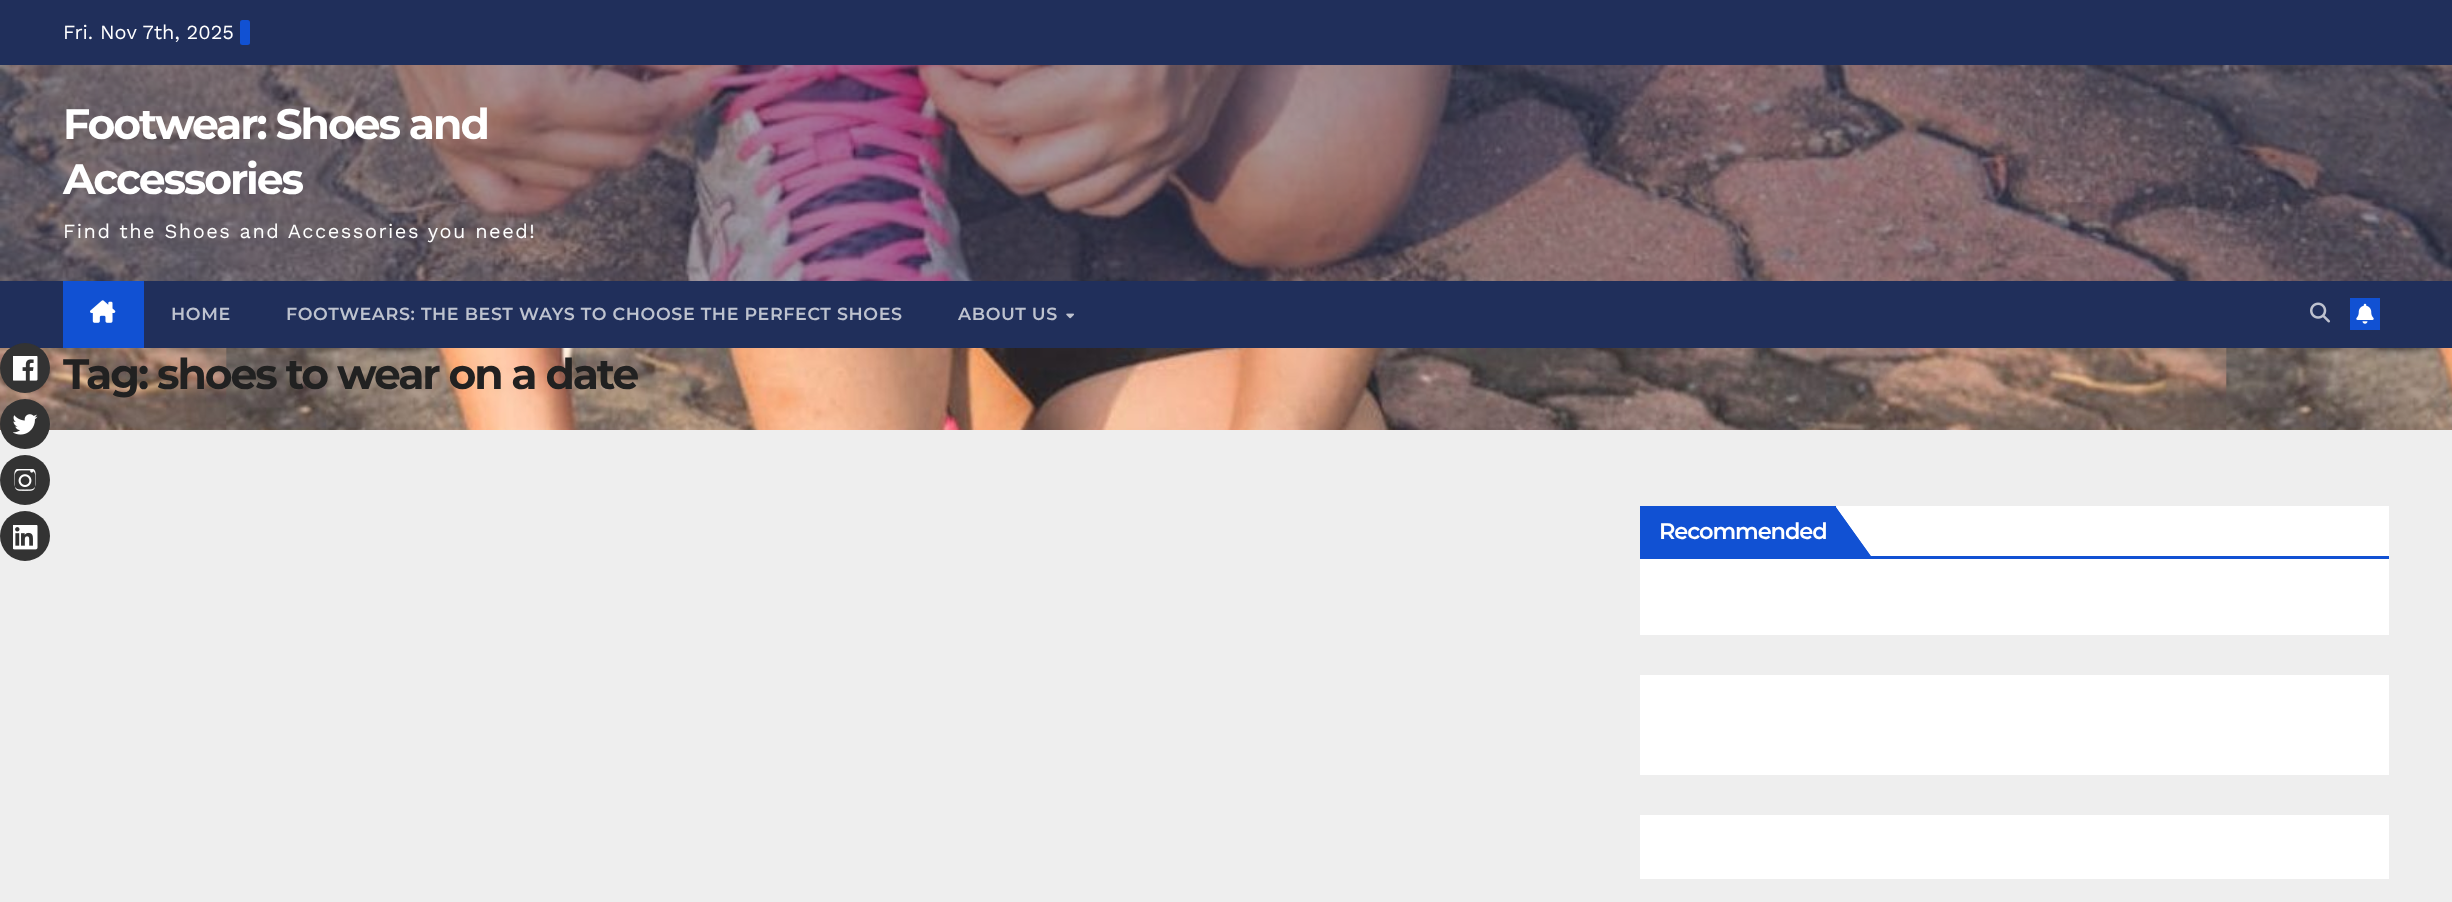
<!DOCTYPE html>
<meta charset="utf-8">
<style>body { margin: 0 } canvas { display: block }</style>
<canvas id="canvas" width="2452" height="902"></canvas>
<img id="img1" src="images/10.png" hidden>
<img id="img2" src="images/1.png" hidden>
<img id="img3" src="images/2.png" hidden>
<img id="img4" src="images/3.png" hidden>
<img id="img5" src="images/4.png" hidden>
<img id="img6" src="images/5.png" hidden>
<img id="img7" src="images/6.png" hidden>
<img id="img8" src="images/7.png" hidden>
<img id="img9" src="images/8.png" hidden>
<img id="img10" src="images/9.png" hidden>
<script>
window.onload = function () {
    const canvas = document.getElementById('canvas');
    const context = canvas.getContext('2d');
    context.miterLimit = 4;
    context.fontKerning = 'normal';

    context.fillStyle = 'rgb(238, 238, 238)';
    context.fillRect(0, 0, 2452, 902);
    context.fillStyle = 'rgb(32, 47, 91)';
    context.fillRect(0, 281, 2452, 67);
    context.drawImage(document.getElementById('img1'), 0, 348, 2452, 82);
    context.fillStyle = 'rgb(51, 51, 51)';
    context.beginPath();
    context.arc(25, 368, 25, 0, 2 * Math.PI);
    context.fill();
    context.drawImage(document.getElementById('img2'), 13, 356, 25, 25);
    context.beginPath();
    context.arc(25, 424, 25, 0, 2 * Math.PI);
    context.fill();
    context.drawImage(document.getElementById('img3'), 13, 414, 25, 21);
    context.beginPath();
    context.arc(25, 480, 25, 0, 2 * Math.PI);
    context.fill();
    context.drawImage(document.getElementById('img4'), 14, 469, 22, 22);
    context.beginPath();
    context.arc(25, 536, 25, 0, 2 * Math.PI);
    context.fill();
    context.drawImage(document.getElementById('img5'), 13, 525, 25, 25);
    context.fillStyle = 'rgb(32, 47, 91)';
    context.fillRect(0, 0, 2452, 65);
    context.fillStyle = 'rgb(17, 81, 211)';
    context.beginPath();
    context.roundRect(240, 20, 10, 25, 2.5);
    context.fill();
    context.drawImage(document.getElementById('img6'), 0, 65, 2452, 216);
    context.fillRect(63, 281, 81, 67);
    context.drawImage(document.getElementById('img7'), 90, 300, 26, 23);
    context.drawImage(document.getElementById('img8'), 1066, 313, 8, 6);
    context.drawImage(document.getElementById('img9'), 2310, 302, 20, 21);
    context.fillRect(2350, 298, 30, 32);
    context.drawImage(document.getElementById('img10'), 2356, 303, 18, 21);
    context.fillStyle = 'rgb(255, 255, 255)';
    context.fillRect(1640, 506, 749, 129);
    context.fillStyle = 'rgb(17, 81, 211)';
    context.fillRect(1640, 556, 749, 3);
    context.fillRect(1640, 506, 196, 50);
    context.beginPath();
    context.moveTo(1835, 506);
    context.lineTo(1873, 559);
    context.lineTo(1835, 559);
    context.closePath();
    context.fill();
    context.beginPath();
    context.moveTo(1835, 506);
    context.lineTo(1872, 558);
    context.lineTo(1872, 559);
    context.lineTo(1835, 559);
    context.closePath();
    context.fill();
    context.fillStyle = 'rgb(255, 255, 255)';
    context.fillRect(1640, 675, 749, 100);
    context.fillRect(1640, 815, 749, 64);
    context.font = '20px Work Sans';
    context.fillText('Fri. Nov 7th, 2025', 63, 39);
    context.letterSpacing = '-2.1px';
    context.font = 'bold 42.5px Montserrat';
    context.fillText('Footwear: Shoes and', 63, 139);
    context.fillText('Accessories', 63, 194);
    context.letterSpacing = '1.5px';
    context.font = '20px Work Sans';
    context.fillText('Find the Shoes and Accessories you need!', 63, 238);
    context.letterSpacing = '0.62px';
    context.font = '600 17.5px Montserrat';
    context.fillStyle = 'rgb(190, 195, 207)';
    context.fillText('HOME', 171, 320);
    context.fillText('FOOTWEARS: THE BEST WAYS TO CHOOSE THE PERFECT SHOES', 286, 320);
    context.fillText('ABOUT US', 958, 320);
    context.letterSpacing = '-2.1px';
    context.font = 'bold 42.5px Montserrat';
    context.fillStyle = 'rgb(33, 33, 33)';
    context.fillText('Tag: shoes to wear on a date', 63, 389);
    context.letterSpacing = '-1.1px';
    context.font = '600 22.5px Montserrat';
    context.fillStyle = 'rgb(255, 255, 255)';
    context.fillText('Recommended', 1659, 539);
};
</script>
